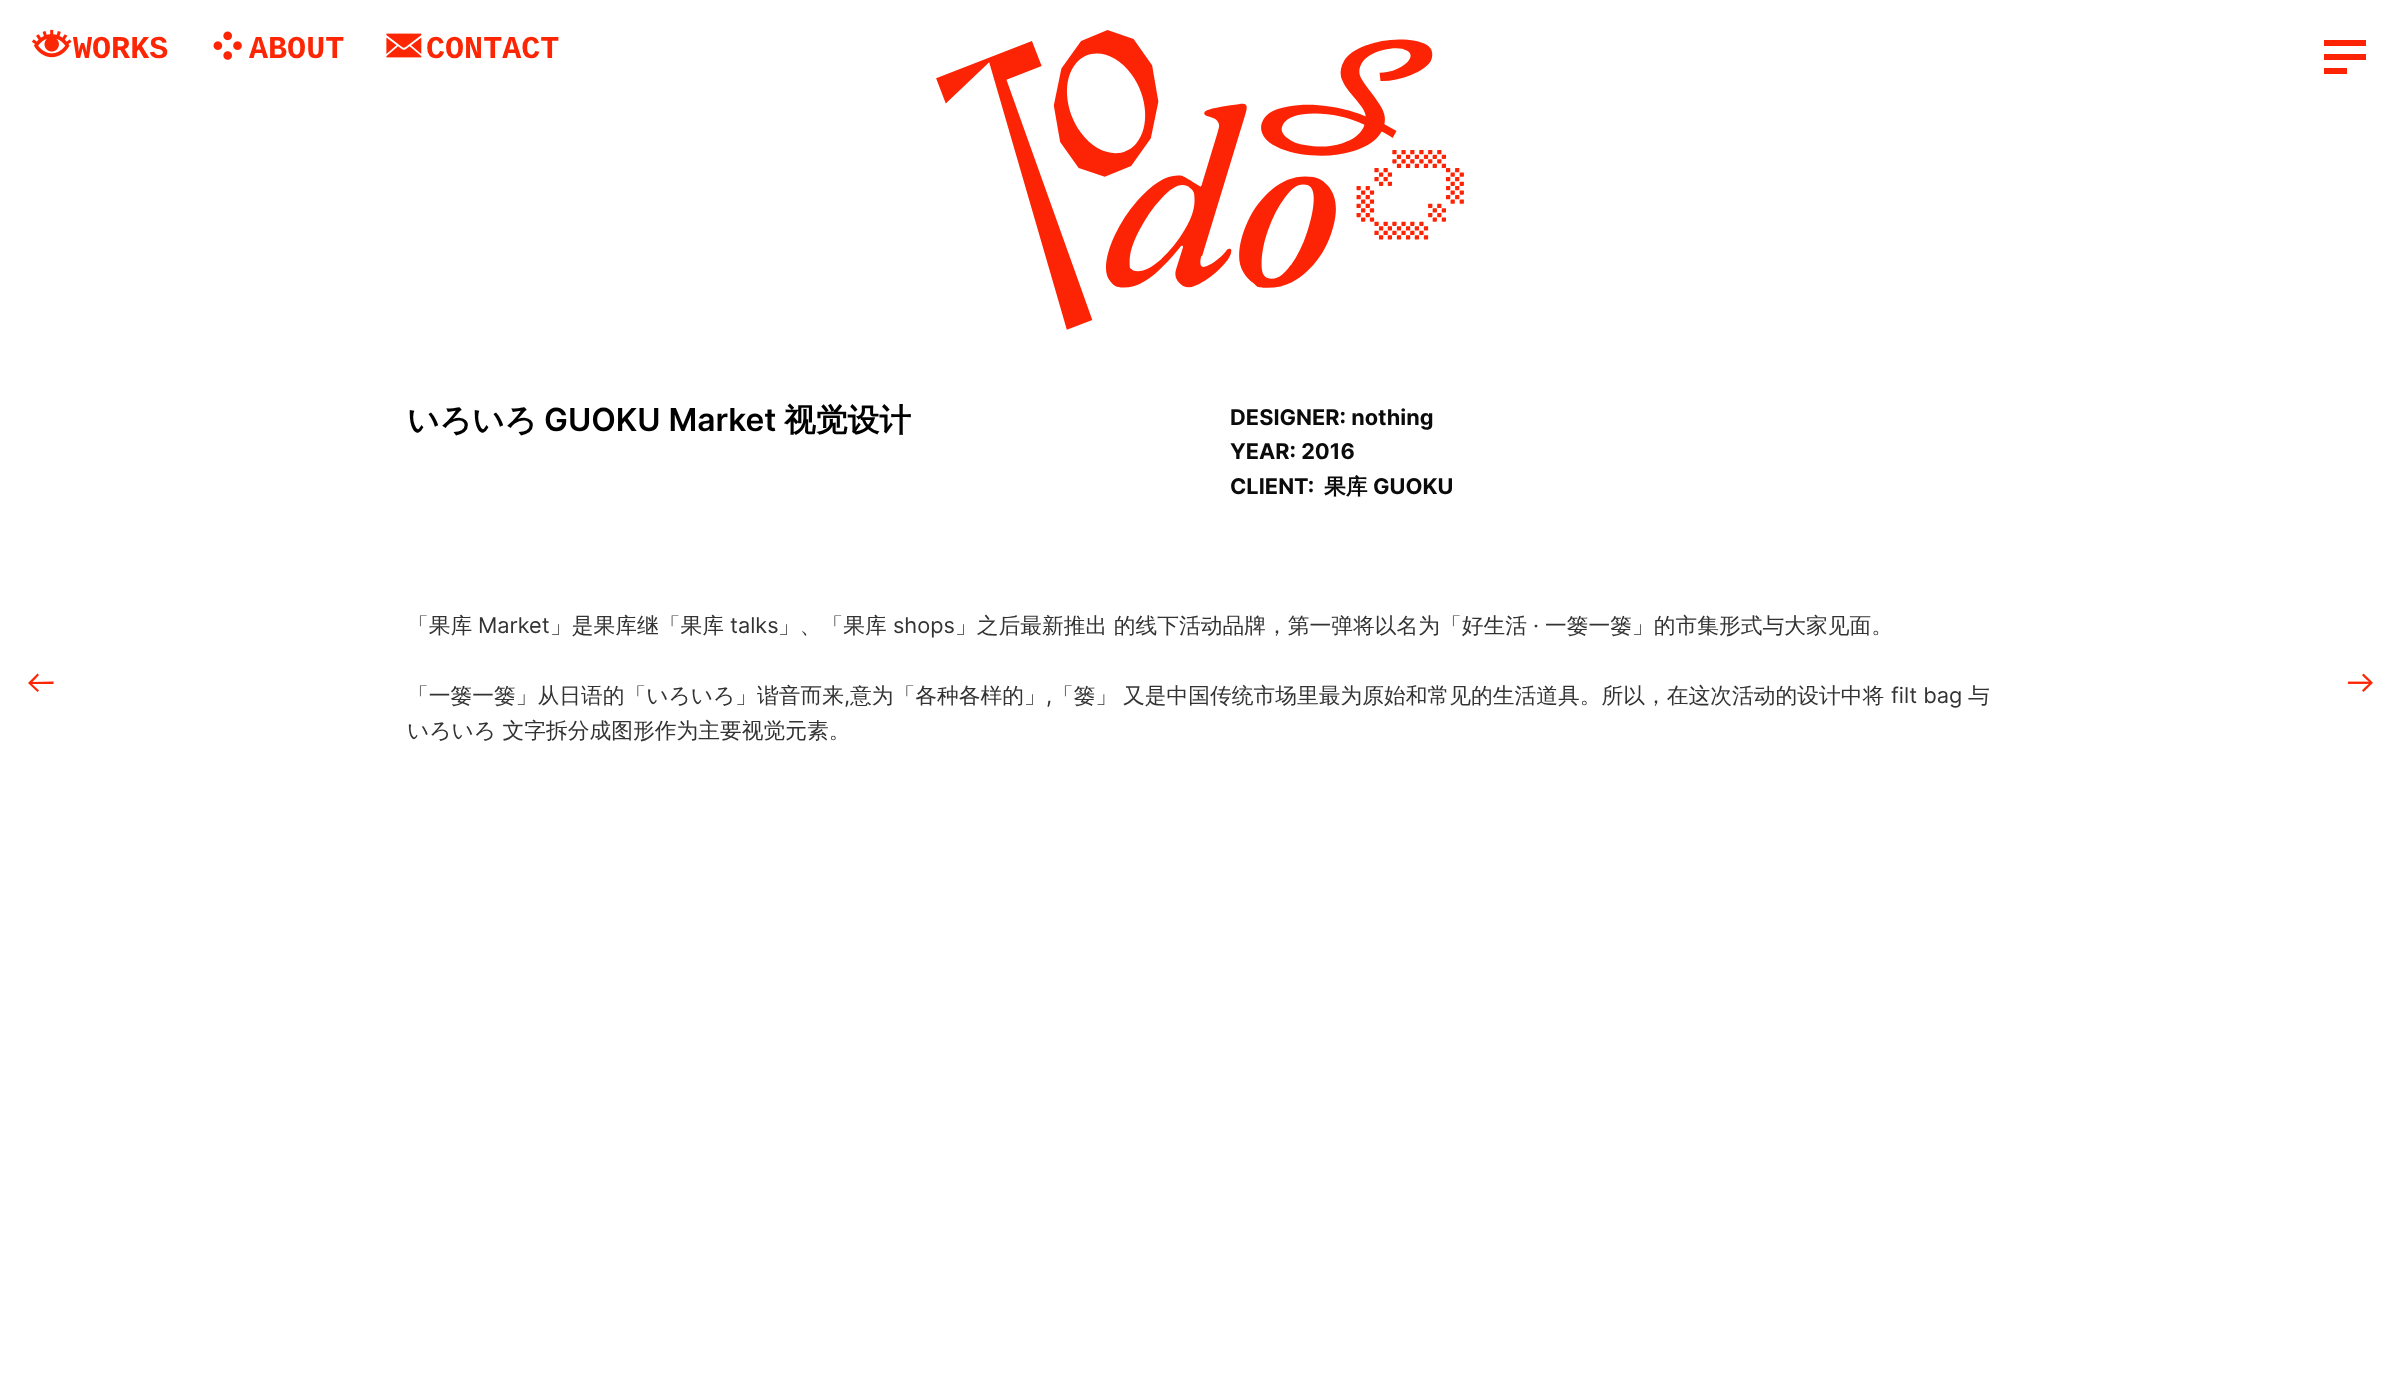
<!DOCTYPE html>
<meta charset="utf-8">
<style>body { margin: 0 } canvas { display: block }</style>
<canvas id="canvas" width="2399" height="1374"></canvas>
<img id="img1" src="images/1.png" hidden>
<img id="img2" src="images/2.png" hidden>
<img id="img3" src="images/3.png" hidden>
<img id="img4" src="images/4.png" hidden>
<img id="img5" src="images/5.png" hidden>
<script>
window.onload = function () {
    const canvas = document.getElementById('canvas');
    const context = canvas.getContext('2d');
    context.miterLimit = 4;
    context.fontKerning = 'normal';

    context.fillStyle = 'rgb(255, 255, 255)';
    context.fillRect(0, 0, 2399, 1374);
    context.drawImage(document.getElementById('img1'), 31, 29, 41, 29);
    context.drawImage(document.getElementById('img2'), 213, 31, 29, 29);
    context.drawImage(document.getElementById('img3'), 386, 33, 36, 25);
    context.drawImage(document.getElementById('img4'), 936, 30, 528, 300);
    context.fillStyle = 'rgb(252, 37, 4)';
    context.beginPath();
    context.moveTo(53.5, 681.5);
    context.lineTo(32.5, 682);
    context.lineTo(39, 675);
    context.lineTo(37.5, 673.5);
    context.lineTo(28, 683);
    context.lineTo(37.5, 692);
    context.lineTo(39, 690.5);
    context.lineTo(32, 684);
    context.lineTo(53.5, 684);
    context.closePath();
    context.fill();
    context.drawImage(document.getElementById('img5'), 2347, 673, 26, 19);
    context.fillStyle = 'rgb(252, 36, 5)';
    context.fillRect(2324, 40, 42, 6);
    context.fillRect(2324, 54, 42, 6);
    context.fillRect(2324, 68, 23, 6);
    context.font = 'bold 31.75px Liberation Mono';
    context.fillStyle = 'rgb(252, 37, 4)';
    context.fillText('WORKS', 73, 58);
    context.fillText('ABOUT', 249, 58);
    context.fillText('CONTACT', 426, 58);
    context.font = 'bold 31.75px WenQuanYi Zen Hei';
    context.fillStyle = 'rgb(0, 0, 0)';
    context.fillText('いろいろ', 407, 431);
    context.font = '600 31.75px Inter';
    context.fillText('GUOKU Market', 544, 431);
    context.font = 'bold 31.75px WenQuanYi Zen Hei';
    context.fillText('视觉设计', 784, 431);
    context.font = 'bold 21.75px Inter';
    context.fillStyle = 'rgb(11, 11, 11)';
    context.fillText('DESIGNER: nothing', 1230, 425);
    context.fillText('YEAR: 2016', 1230, 459);
    context.fillText('CLIENT:', 1230, 494);
    context.font = 'bold 21.75px WenQuanYi Zen Hei';
    context.fillText('果库', 1324, 494);
    context.font = 'bold 21.75px Inter';
    context.fillText('GUOKU', 1373, 494);
    context.font = '500 21.75px WenQuanYi Zen Hei';
    context.fillStyle = 'rgb(51, 51, 51)';
    context.fillText('「果库', 407, 633);
    context.font = '21.75px Inter';
    context.fillText('Market', 478, 633);
    context.font = '500 21.75px WenQuanYi Zen Hei';
    context.fillText('」是果库继「果库', 550, 633);
    context.font = '21.75px Inter';
    context.fillText('talks', 730, 633);
    context.font = '500 21.75px WenQuanYi Zen Hei';
    context.fillText('」、「果库', 778, 633);
    context.font = '21.75px Inter';
    context.fillText('shops', 893, 633);
    context.font = '500 21.75px WenQuanYi Zen Hei';
    context.fillText('」之后最新推出 的线下活动品牌，第一弹将以名为「好生活', 955, 633);
    context.font = '21.75px Inter';
    context.fillText('·', 1533, 633);
    context.font = '500 21.75px WenQuanYi Zen Hei';
    context.fillText('一篓一篓」的市集形式与大家见面。', 1545, 633);
    context.fillText('「一篓一篓」从日语的「いろいろ」谐音而来', 407, 703);
    context.font = '21.75px Inter';
    context.fillText(',', 844, 703);
    context.font = '500 21.75px WenQuanYi Zen Hei';
    context.fillText('意为「各种各样的」', 850, 703);
    context.font = '21.75px Inter';
    context.fillText(',', 1046, 703);
    context.font = '500 21.75px WenQuanYi Zen Hei';
    context.fillText('「篓」', 1052, 703);
    context.fillText('又是中国传统市场里最为原始和常见的生活道具。所以，在这次活动的设计中将', 1123, 703);
    context.font = '21.75px Inter';
    context.fillText('filt bag', 1891, 703);
    context.font = '500 21.75px WenQuanYi Zen Hei';
    context.fillText('与', 1968, 703);
    context.fillText('いろいろ 文字拆分成图形作为主要视觉元素。', 407, 738);
};
</script>
